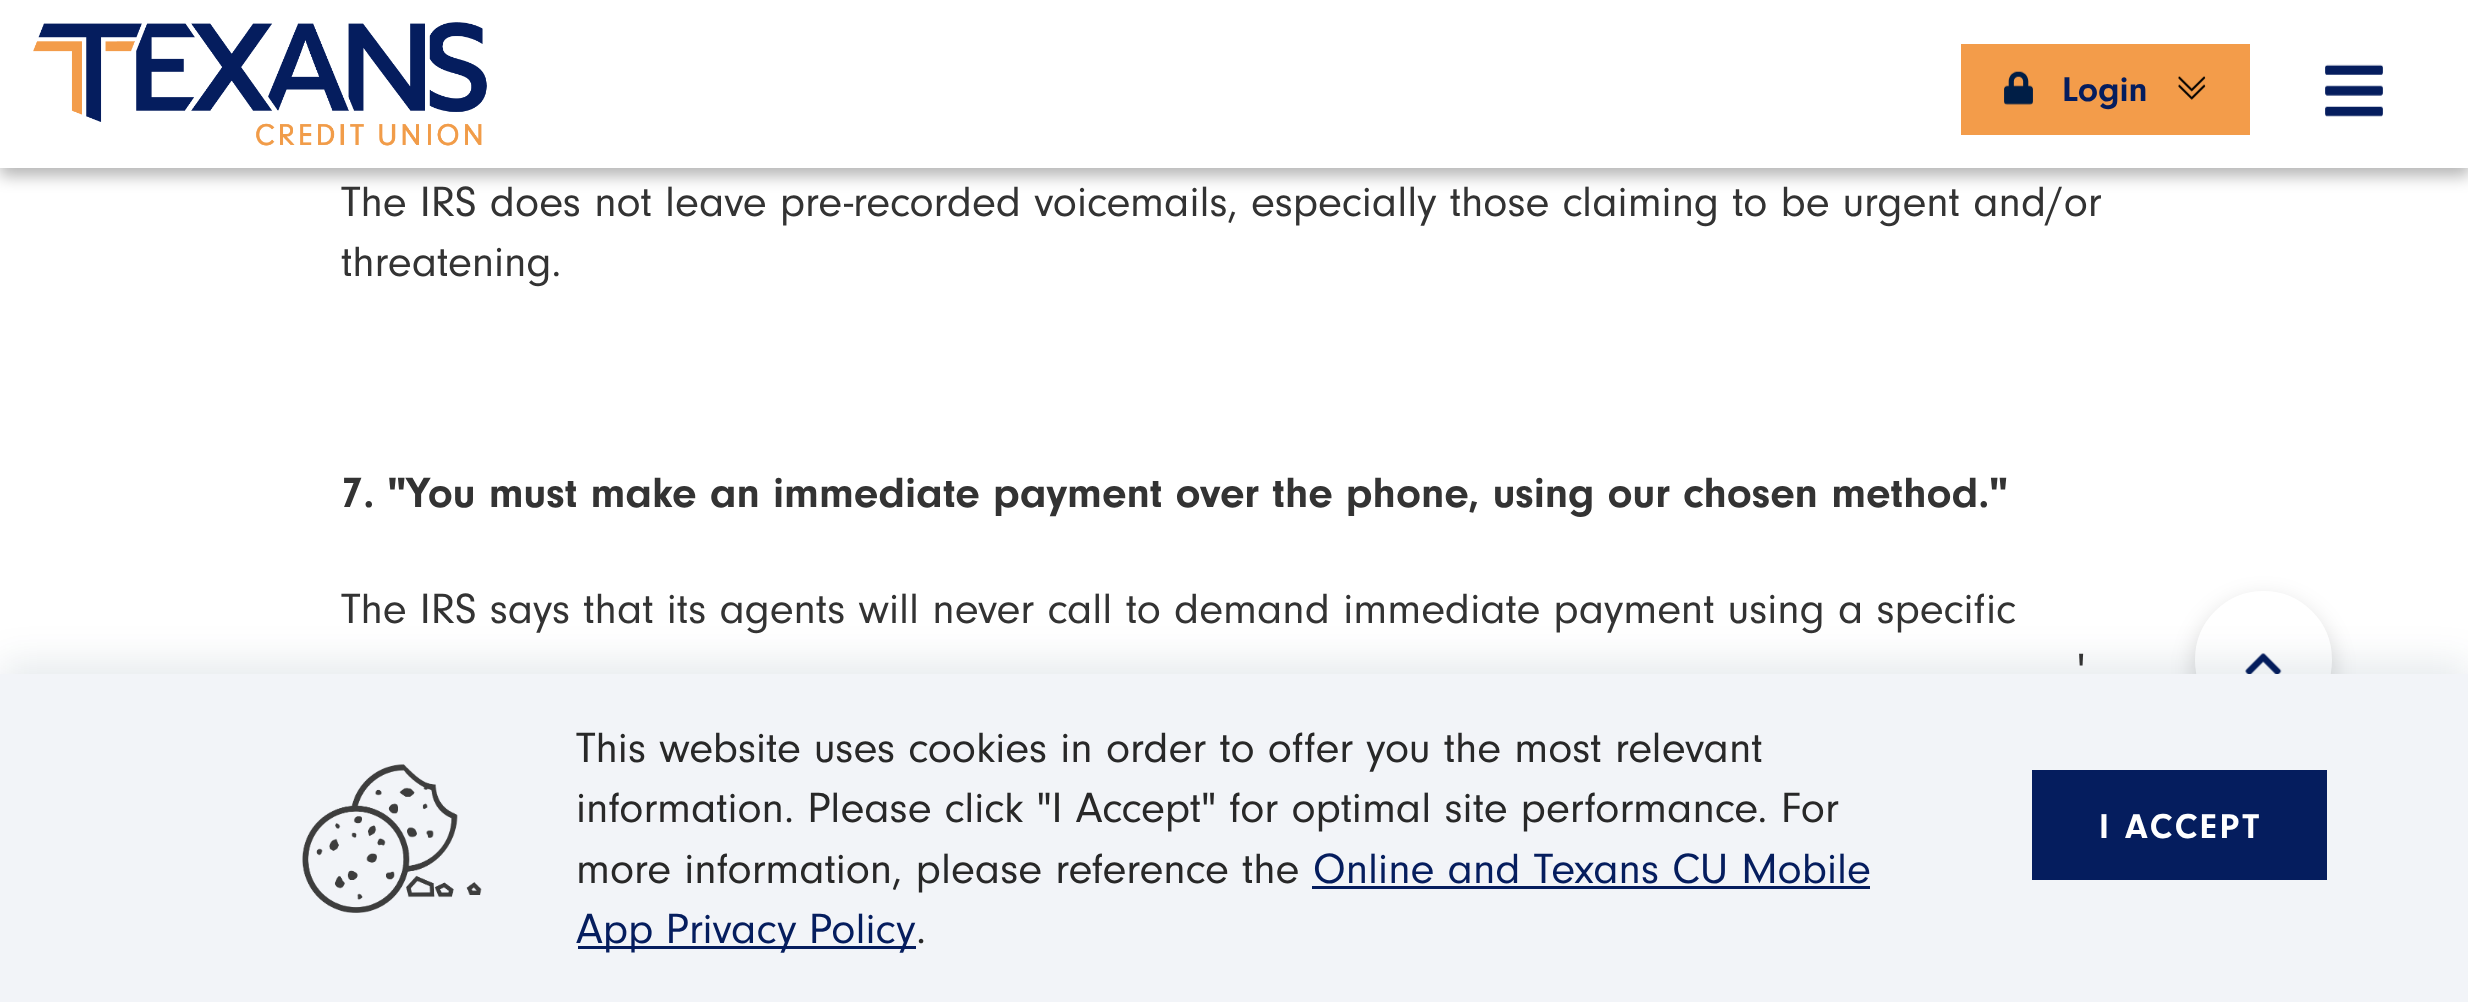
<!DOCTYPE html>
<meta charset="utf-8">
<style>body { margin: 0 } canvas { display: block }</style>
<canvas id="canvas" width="2468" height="1002"></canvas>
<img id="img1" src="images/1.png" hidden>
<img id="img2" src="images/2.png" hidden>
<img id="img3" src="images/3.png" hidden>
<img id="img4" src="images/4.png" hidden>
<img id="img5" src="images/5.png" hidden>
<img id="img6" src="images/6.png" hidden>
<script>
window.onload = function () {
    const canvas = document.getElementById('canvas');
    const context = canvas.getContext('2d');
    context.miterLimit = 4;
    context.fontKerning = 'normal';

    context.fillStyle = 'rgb(255, 255, 255)';
    context.fillRect(0, 0, 2468, 1002);
    context.save();
    context.beginPath();
    context.moveTo(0, 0);
    context.lineTo(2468, 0);
    context.lineTo(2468, 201);
    context.lineTo(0, 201);
    context.closePath();
    context.moveTo(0, 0);
    context.lineTo(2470, 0);
    context.lineTo(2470, 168);
    context.lineTo(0, 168);
    context.closePath();
    context.clip('evenodd');
    context.fillStyle = 'rgba(0, 0, 0, 0.29)';
    context.filter = 'blur(8px)';
    context.beginPath();
    context.rect(0, 8, 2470, 168);
    context.fill();
    context.filter = 'none';
    context.restore();
    context.drawImage(document.getElementById('img1'), 33, 22, 454, 124);
    context.drawImage(document.getElementById('img2'), 2325, 64, 58, 53);
    context.fillStyle = 'rgb(243, 156, 74)';
    context.fillRect(1961, 44, 289, 91);
    context.drawImage(document.getElementById('img3'), 2004, 71, 29, 34);
    context.drawImage(document.getElementById('img4'), 2178, 76, 28, 24);
    context.fillStyle = 'rgba(0, 0, 0, 0.16)';
    context.filter = 'blur(12.5px)';
    context.beginPath();
    context.roundRect(2195, 600, 137, 137, 68.5);
    context.fill();
    context.filter = 'none';
    context.fillStyle = 'rgb(255, 255, 255)';
    context.beginPath();
    context.roundRect(2196.5, 592.5, 134, 135, 67);
    context.fill();
    context.strokeStyle = 'rgb(255, 255, 255)';
    context.lineWidth = 3;
    context.stroke();
    context.drawImage(document.getElementById('img5'), 2245, 653, 37, 21);
    context.fillStyle = 'rgba(0, 37, 64, 0.1)';
    context.filter = 'blur(19px)';
    context.beginPath();
    context.rect(0, 663, 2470, 330);
    context.fill();
    context.filter = 'none';
    context.fillStyle = 'rgb(242, 244, 248)';
    context.fillRect(0, 674, 2468, 328);
    context.drawImage(document.getElementById('img6'), 302, 764, 180, 149);
    context.fillStyle = 'rgb(5, 29, 94)';
    context.fillRect(1312, 886, 558, 3);
    context.fillRect(578, 946, 338, 3);
    context.fillRect(2032, 770, 295, 110);
    context.font = 'bold 35.75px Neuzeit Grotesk';
    context.fillText('Login', 2062, 101);
    context.font = '44px Neuzeit Grotesk';
    context.fillStyle = 'rgb(51, 51, 51)';
    context.fillText('The IRS does not leave pre-recorded voicemails, especially those claiming to be urgent and/or', 341, 216);
    context.fillText('threatening.', 341, 276);
    context.font = 'bold 44px Neuzeit Grotesk';
    context.fillText('7. "You must make an immediate payment over the phone, using our chosen method."', 341, 507);
    context.font = '44px Neuzeit Grotesk';
    context.fillText('The IRS says that its agents will never call to demand immediate payment using a specific', 341, 623);
    context.fillText('\'', 2077, 683);
    context.fillStyle = 'rgb(40, 40, 40)';
    context.fillText('This website uses cookies in order to offer you the most relevant', 576, 762);
    context.fillText('information. Please click "I Accept" for optimal site performance. For', 576, 822);
    context.fillText('more information, please reference the', 576, 883);
    context.fillStyle = 'rgb(5, 29, 94)';
    context.fillText('Online and Texans CU Mobile', 1313, 883);
    context.wordSpacing = '-1px';
    context.fillText('App Privacy Policy', 576, 943);
    context.wordSpacing = '0px';
    context.fillStyle = 'rgb(40, 40, 40)';
    context.fillText('.', 916, 943);
    context.letterSpacing = '2.75px';
    context.font = 'bold 35.75px Neuzeit Grotesk';
    context.fillStyle = 'rgb(255, 255, 255)';
    context.fillText('I ACCEPT', 2099, 838);
};
</script>
